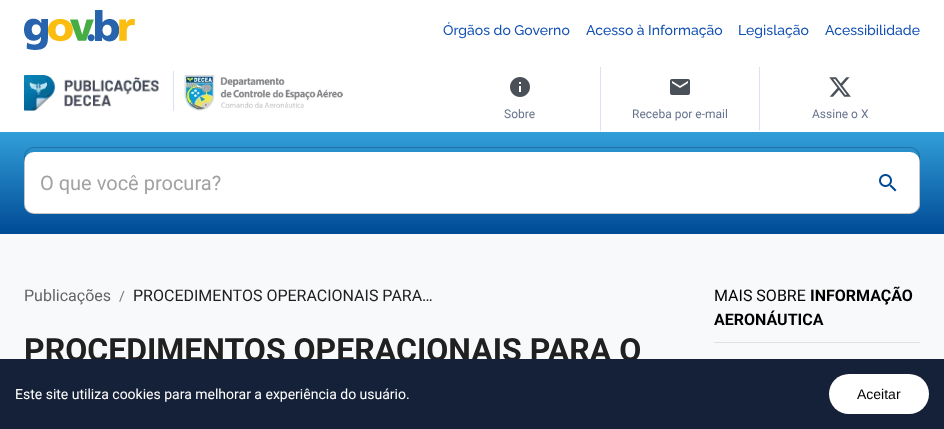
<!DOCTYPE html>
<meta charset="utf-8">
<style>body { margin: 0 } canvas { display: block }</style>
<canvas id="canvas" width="944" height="429"></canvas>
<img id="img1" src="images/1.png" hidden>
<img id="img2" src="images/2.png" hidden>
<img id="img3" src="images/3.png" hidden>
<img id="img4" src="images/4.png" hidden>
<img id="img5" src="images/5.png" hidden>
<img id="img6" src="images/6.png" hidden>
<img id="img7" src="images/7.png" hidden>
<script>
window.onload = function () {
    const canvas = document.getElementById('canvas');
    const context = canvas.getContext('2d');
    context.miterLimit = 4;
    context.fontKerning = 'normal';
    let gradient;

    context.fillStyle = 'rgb(248, 249, 250)';
    context.fillRect(0, 0, 944, 429);
    context.fillStyle = 'rgb(255, 255, 255)';
    context.fillRect(0, 0, 944, 132);
    context.drawImage(document.getElementById('img1'), 24, 10, 111, 40);
    context.drawImage(document.getElementById('img2'), 24, 75, 135, 36);
    context.fillStyle = 'rgb(220, 227, 240)';
    context.fillRect(173, 71, 1, 40);
    context.drawImage(document.getElementById('img3'), 184, 75, 159, 36);
    context.drawImage(document.getElementById('img4'), 510, 77, 20, 20);
    context.beginPath();
    context.moveTo(760, 67);
    context.lineTo(760, 132);
    context.lineTo(759, 130);
    context.lineTo(759, 67);
    context.closePath();
    context.fill();
    context.fillStyle = 'rgb(255, 255, 255)';
    context.beginPath();
    context.moveTo(760, 132);
    context.lineTo(600, 132);
    context.lineTo(601, 130);
    context.lineTo(759, 130);
    context.closePath();
    context.fill();
    context.fillStyle = 'rgb(220, 227, 240)';
    context.beginPath();
    context.moveTo(600, 132);
    context.lineTo(600, 67);
    context.lineTo(601, 67);
    context.lineTo(601, 130);
    context.closePath();
    context.fill();
    context.drawImage(document.getElementById('img5'), 670, 79, 20, 16);
    context.drawImage(document.getElementById('img6'), 829, 77, 22, 20);
    gradient = context.createLinearGradient(472, 132, 472, 234);
    gradient.addColorStop(0, 'rgb(50, 159, 217)');
    gradient.addColorStop(1, 'rgb(0, 74, 149)');
    context.fillStyle = gradient;
    context.fillRect(0, 132, 944, 102);
    context.fillStyle = 'rgb(255, 255, 255)';
    context.beginPath();
    context.roundRect(24, 152, 896, 62, 10);
    context.fill();
    context.beginPath();
    context.roundRect(856, 153, 64, 60, 10);
    context.fill();
    context.drawImage(document.getElementById('img7'), 879, 174, 18, 18);
    context.beginPath();
    context.roundRect(24.5, 147.5, 895, 66, 9.5);
    context.strokeStyle = 'rgba(0, 0, 0, 0.23)';
    context.stroke();
    context.fillStyle = 'rgb(222, 226, 230)';
    context.fillRect(714, 342, 206, 1);
    context.font = '500 14px Raleway';
    context.fillStyle = 'rgb(19, 81, 180)';
    context.fillText('Órgãos do Governo', 443, 35);
    context.fillText('Acesso à Informação', 586, 35);
    context.fillText('Legislação', 738, 35);
    context.fillText('Acessibilidade', 825, 35);
    context.font = '12px Roboto';
    context.fillStyle = 'rgb(103, 116, 142)';
    context.fillText('Sobre', 504, 118);
    context.fillText('Receba por e-mail', 632, 118);
    context.fillText('Assine o X', 812, 118);
    context.font = '20px Roboto';
    context.fillStyle = 'rgb(162, 162, 162)';
    context.fillText('O que você procura?', 40, 190);
    context.font = '16px Roboto';
    context.fillStyle = 'rgb(99, 100, 100)';
    context.fillText('Publicações', 24, 301);
    context.font = '14px Roboto';
    context.fillStyle = 'rgb(108, 117, 125)';
    context.fillText('/', 119, 301);
    context.font = '16px Roboto';
    context.fillStyle = 'rgb(32, 32, 33)';
    context.fillText('PROCEDIMENTOS OPERACIONAIS PARA…', 133, 301);
    context.font = 'bold 32px Roboto';
    context.fillText('PROCEDIMENTOS OPERACIONAIS PARA O', 24, 361);
    context.font = '16px Roboto';
    context.fillStyle = 'rgb(0, 0, 0)';
    context.fillText('MAIS SOBRE', 714, 301);
    context.font = 'bold 16px Roboto';
    context.fillText('INFORMAÇÃO', 810, 301);
    context.fillText('AERONÁUTICA', 714, 325);
    context.fillStyle = 'rgb(21, 33, 56)';
    context.fillRect(0, 359, 944, 70);
    context.font = '14px Roboto';
    context.fillStyle = 'rgb(255, 255, 255)';
    context.fillText('Este site utiliza cookies para melhorar a experiência do usuário.', 15, 399);
    context.beginPath();
    context.roundRect(829, 374, 100, 40, 20);
    context.fill();
    context.font = '14px Liberation Sans';
    context.fillStyle = 'rgb(0, 0, 0)';
    context.fillText('Aceitar', 857, 399);
};
</script>
